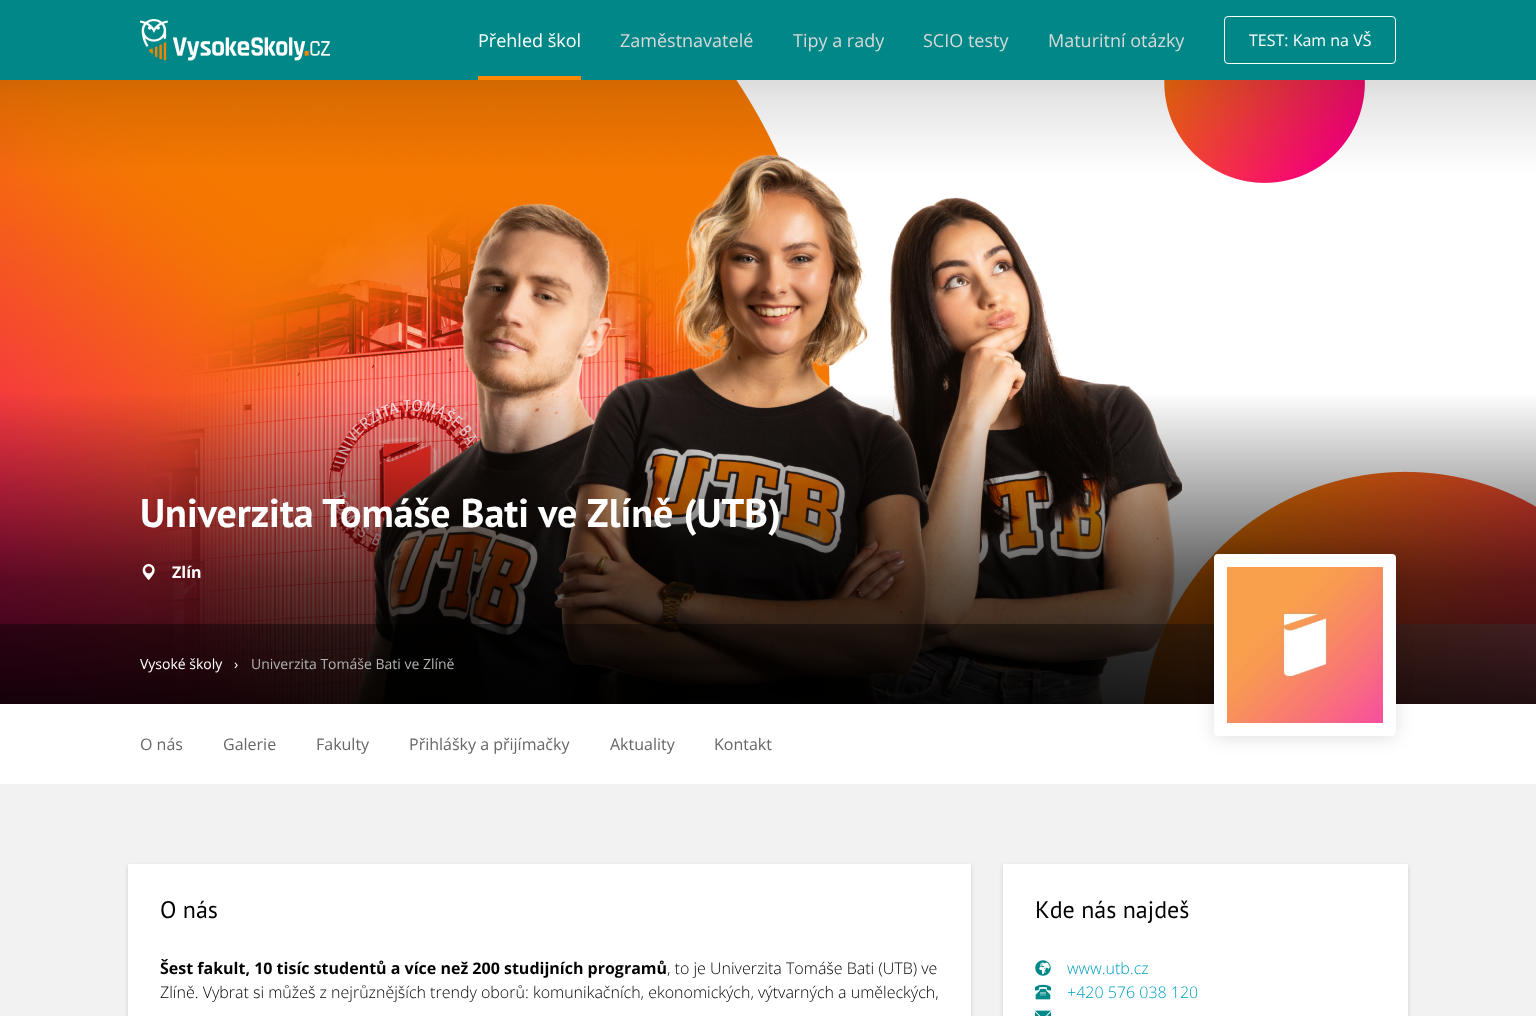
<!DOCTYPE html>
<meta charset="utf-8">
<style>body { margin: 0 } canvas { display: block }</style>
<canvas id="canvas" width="1536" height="1016"></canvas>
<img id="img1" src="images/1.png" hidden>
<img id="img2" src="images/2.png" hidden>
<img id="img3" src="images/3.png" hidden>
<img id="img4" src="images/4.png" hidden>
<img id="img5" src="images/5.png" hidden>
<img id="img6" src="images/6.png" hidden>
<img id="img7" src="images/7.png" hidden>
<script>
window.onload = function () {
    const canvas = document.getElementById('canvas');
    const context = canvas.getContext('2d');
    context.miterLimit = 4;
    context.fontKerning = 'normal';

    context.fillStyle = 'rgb(242, 242, 242)';
    context.fillRect(0, 0, 1536, 1016);
    context.fillStyle = 'rgb(0, 136, 136)';
    context.fillRect(0, 0, 1536, 80);
    context.drawImage(document.getElementById('img1'), 140, 19, 190, 42);
    context.fillStyle = 'rgb(255, 136, 0)';
    context.fillRect(478, 76, 103, 4);
    context.beginPath();
    context.roundRect(1224.5, 16.5, 171, 47, 3.5);
    context.strokeStyle = 'rgb(255, 255, 255)';
    context.stroke();
    context.drawImage(document.getElementById('img2'), 0, 80, 1536, 624);
    context.drawImage(document.getElementById('img3'), 142, 564, 13, 17);
    context.fillStyle = 'rgb(255, 255, 255)';
    context.fillRect(0, 704, 1536, 80);
    context.fillStyle = 'rgba(0, 0, 0, 0.12)';
    context.filter = 'blur(9px)';
    context.beginPath();
    context.roundRect(1214, 556, 182, 182, 4);
    context.fill();
    context.filter = 'none';
    context.fillStyle = 'rgb(255, 255, 255)';
    context.beginPath();
    context.roundRect(1214, 554, 182, 182, 4);
    context.fill();
    context.drawImage(document.getElementById('img4'), 1227, 567, 156, 156);
    context.fillStyle = 'rgba(0, 0, 0, 0.15)';
    context.filter = 'blur(2px)';
    context.beginPath();
    context.rect(128, 866, 843, 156);
    context.fill();
    context.filter = 'none';
    context.fillStyle = 'rgb(255, 255, 255)';
    context.fillRect(128, 864, 843, 152);
    context.fillStyle = 'rgba(0, 0, 0, 0.15)';
    context.filter = 'blur(2px)';
    context.beginPath();
    context.rect(1003, 866, 405, 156);
    context.fill();
    context.filter = 'none';
    context.fillStyle = 'rgb(255, 255, 255)';
    context.fillRect(1003, 864, 405, 152);
    context.drawImage(document.getElementById('img5'), 1035, 960, 16, 16);
    context.drawImage(document.getElementById('img6'), 1035, 984, 16, 16);
    context.drawImage(document.getElementById('img7'), 1035, 1010, 16, 6);
    context.font = '18px Open Sans';
    context.fillText('Přehled škol', 478, 47);
    context.fillStyle = 'rgb(217, 217, 217)';
    context.fillText('Zaměstnavatelé', 620, 47);
    context.fillText('Tipy a rady', 793, 47);
    context.fillText('SCIO testy', 923, 47);
    context.fillText('Maturitní otázky', 1048, 47);
    context.font = '16px Open Sans';
    context.fillStyle = 'rgb(255, 255, 255)';
    context.fillText('TEST: Kam na VŠ', 1249, 46);
    context.font = 'bold 40px PT Sans';
    context.fillText('Univerzita Tomáše Bati ve Zlíně (UTB)', 140, 527);
    context.font = 'bold 16px Open Sans';
    context.fillText('Zlín', 172, 578);
    context.font = '14px Open Sans';
    context.fillText('Vysoké školy', 140, 669);
    context.fillText('›', 234, 669);
    context.fillStyle = 'rgb(179, 179, 179)';
    context.fillText('Univerzita Tomáše Bati ve Zlíně', 251, 669);
    context.font = '16px Open Sans';
    context.fillStyle = 'rgb(102, 102, 102)';
    context.fillText('O nás', 140, 750);
    context.fillText('Galerie', 223, 750);
    context.fillText('Fakulty', 316, 750);
    context.fillText('Přihlášky a přijímačky', 409, 750);
    context.fillText('Aktuality', 610, 750);
    context.fillText('Kontakt', 714, 750);
    context.font = '24px PT Sans';
    context.fillStyle = 'rgb(0, 0, 0)';
    context.fillText('O nás', 160, 918);
    context.font = 'bold 16px Open Sans';
    context.fillText('Šest fakult, 10 tisíc studentů a více než 200 studijních programů', 160, 974);
    context.font = '300 16px Open Sans';
    context.fillText(', to je Univerzita Tomáše Bati (UTB) ve', 667, 974);
    context.fillText('Zlíně. Vybrat si můžeš z nejrůznějších trendy oborů: komunikačních, ekonomických, výtvarných a uměleckých,', 160, 998);
    context.font = '24px PT Sans';
    context.fillText('Kde nás najdeš', 1035, 918);
    context.font = '300 16px Open Sans';
    context.fillStyle = 'rgb(0, 160, 192)';
    context.fillText('www.utb.cz', 1067, 974);
    context.fillText('+420 576 038 120', 1067, 998);
};
</script>
